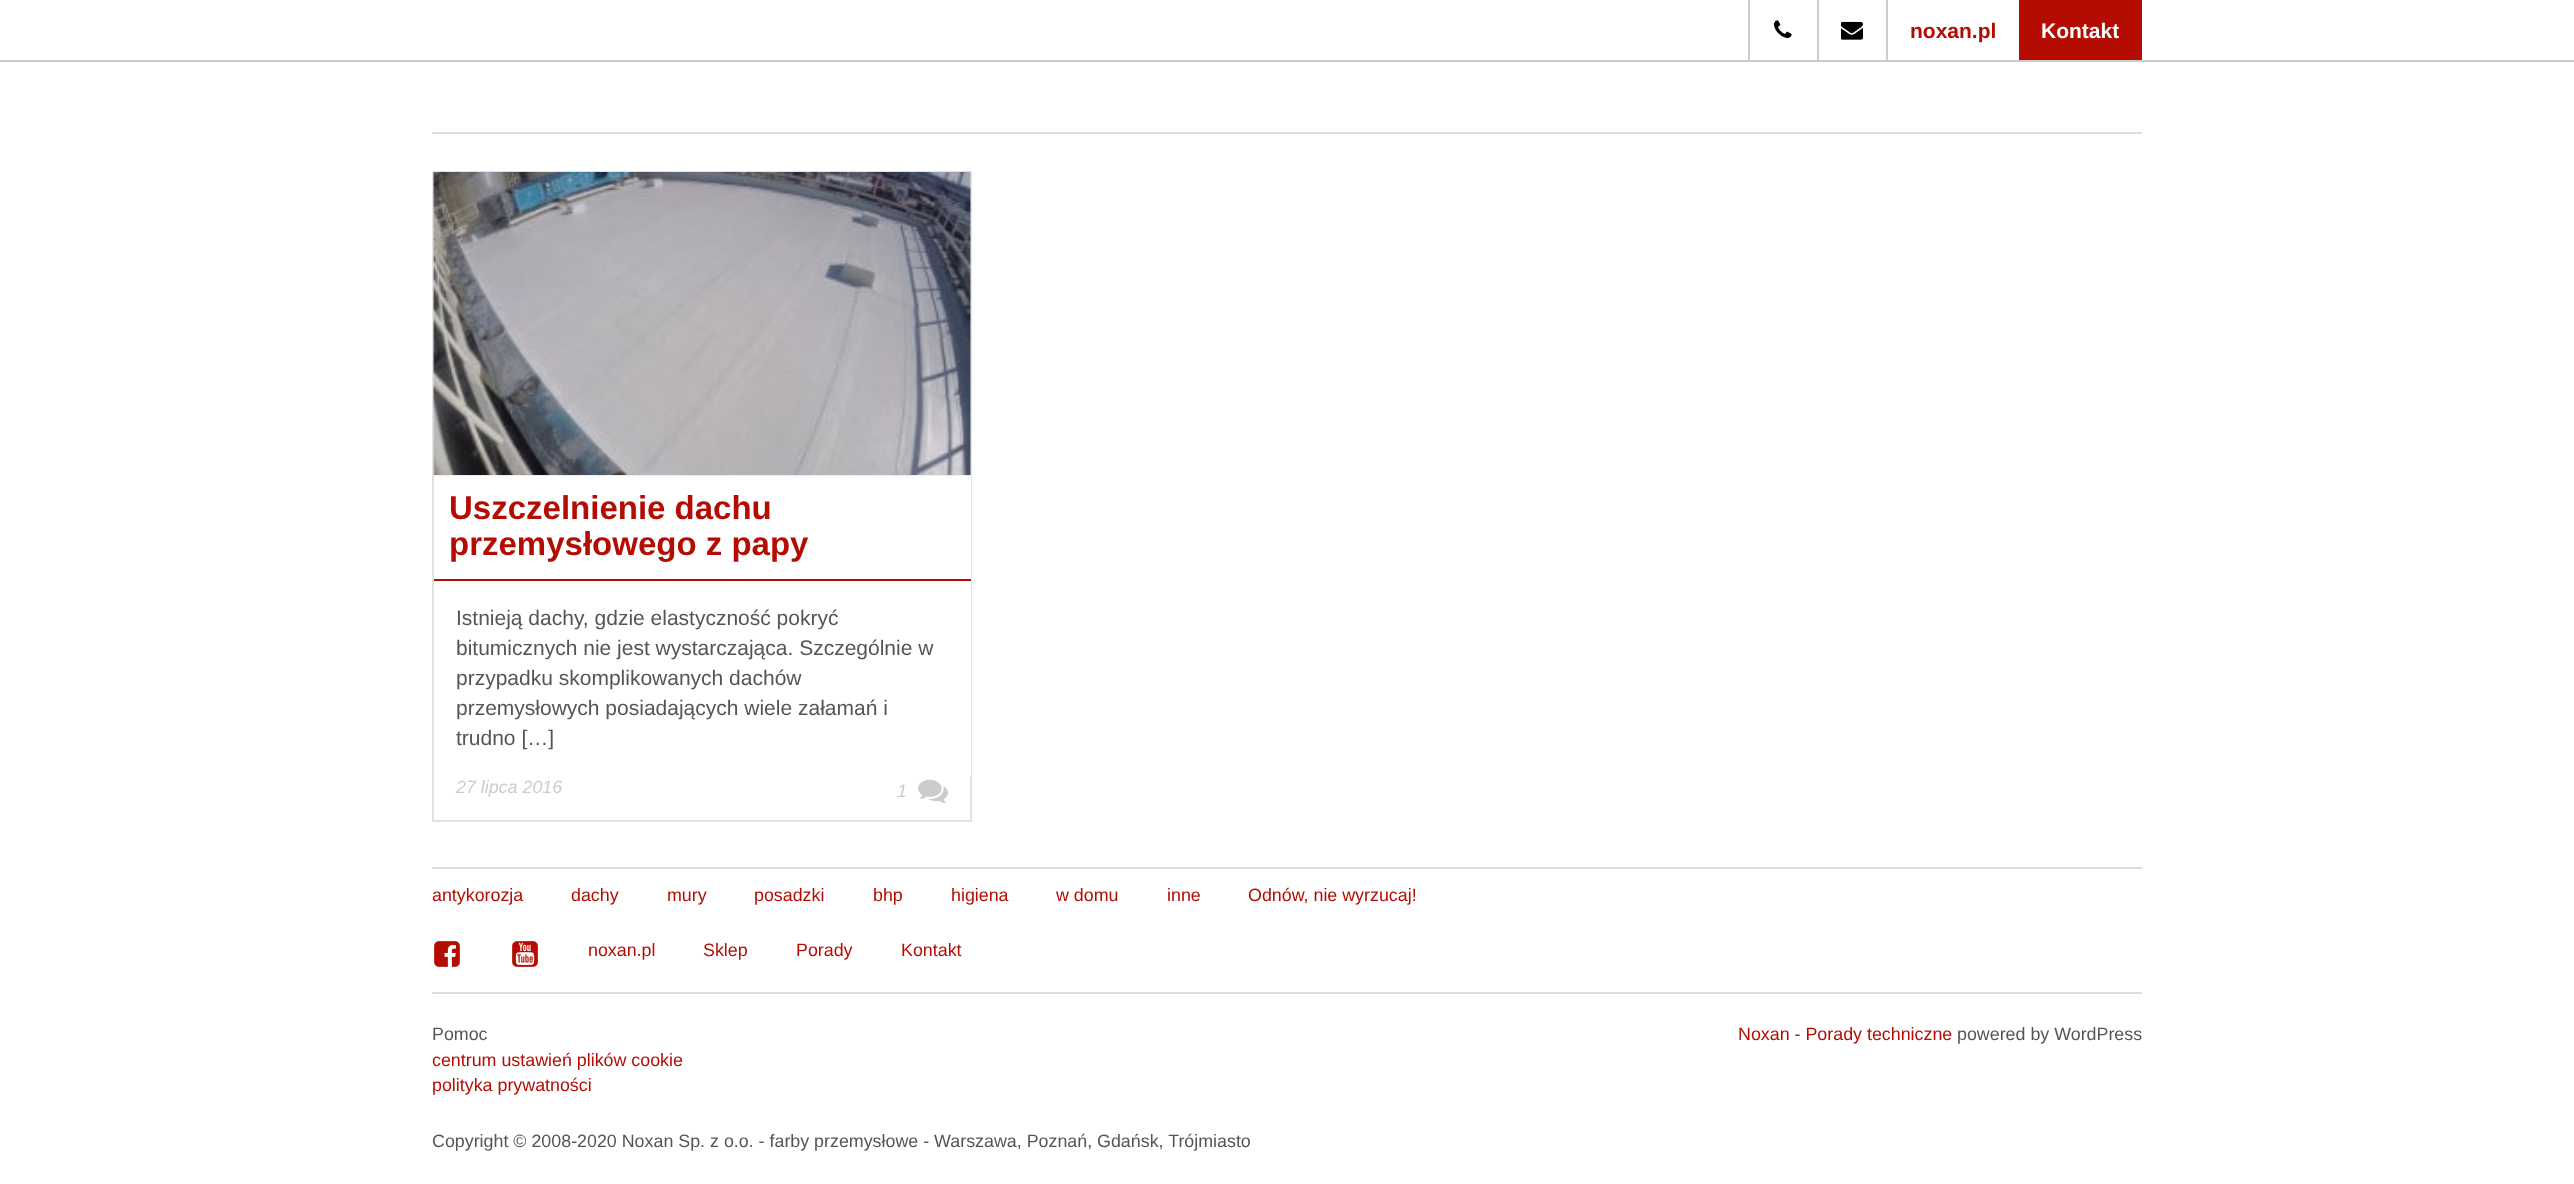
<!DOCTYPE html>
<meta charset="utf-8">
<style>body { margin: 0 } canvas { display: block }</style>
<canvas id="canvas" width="2574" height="1184"></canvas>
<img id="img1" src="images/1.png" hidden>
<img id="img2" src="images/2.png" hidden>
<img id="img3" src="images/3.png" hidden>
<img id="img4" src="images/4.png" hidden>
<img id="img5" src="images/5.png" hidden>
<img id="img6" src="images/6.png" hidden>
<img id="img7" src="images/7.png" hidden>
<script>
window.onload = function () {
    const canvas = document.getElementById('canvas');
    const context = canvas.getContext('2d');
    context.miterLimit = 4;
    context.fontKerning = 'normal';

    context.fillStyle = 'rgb(255, 255, 255)';
    context.fillRect(0, 0, 2574, 1184);
    context.fillStyle = 'rgb(204, 204, 204)';
    context.fillRect(0, 60, 2574, 2);
    context.fillRect(1748, 0, 2, 60);
    context.drawImage(document.getElementById('img1'), 1773, 20, 19, 18);
    context.fillRect(1817, 0, 2, 60);
    context.drawImage(document.getElementById('img2'), 1841, 21, 22, 19);
    context.fillRect(1886, 0, 2, 60);
    context.fillStyle = 'rgb(180, 12, 3)';
    context.fillRect(2019, 0, 123, 60);
    context.fillStyle = 'rgb(221, 221, 221)';
    context.fillRect(432, 132, 1710, 2);
    context.strokeStyle = 'rgb(227, 227, 227)';
    context.lineWidth = 2;
    context.strokeRect(433, 172, 538, 649);
    context.fillStyle = 'rgb(238, 238, 238)';
    context.fillRect(434, 173, 537, 303);
    context.drawImage(document.getElementById('img3'), 433, 172, 538, 303);
    context.drawImage(document.getElementById('img4'), 433, 172, 538, 303);
    context.fillStyle = 'rgb(255, 255, 255)';
    context.fillRect(970, 476, 1, 103);
    context.fillStyle = 'rgb(180, 12, 3)';
    context.fillRect(434, 579, 537, 2);
    context.fillStyle = 'rgb(255, 255, 255)';
    context.fillRect(970, 581, 1, 195);
    context.drawImage(document.getElementById('img5'), 918, 779, 30, 25);
    context.fillStyle = 'rgb(221, 221, 221)';
    context.fillRect(432, 867, 1710, 2);
    context.drawImage(document.getElementById('img6'), 434, 941, 26, 26);
    context.drawImage(document.getElementById('img7'), 512, 941, 26, 26);
    context.fillRect(432, 992, 1710, 2);
    context.font = 'bold 21px Liberation Sans';
    context.fillStyle = 'rgb(180, 12, 3)';
    context.fillText('noxan.pl', 1910, 38);
    context.fillStyle = 'rgb(255, 255, 255)';
    context.fillText('Kontakt', 2041, 38);
    context.font = 'bold 33px Liberation Sans';
    context.fillStyle = 'rgb(180, 12, 3)';
    context.fillText('Uszczelnienie dachu', 449, 519);
    context.fillText('przemysłowego z papy', 449, 555);
    context.font = '21px Liberation Sans';
    context.fillStyle = 'rgb(85, 85, 85)';
    context.fillText('Istnieją dachy, gdzie elastyczność pokryć', 456, 625);
    context.fillText('bitumicznych nie jest wystarczająca. Szczególnie w', 456, 655);
    context.fillText('przypadku skomplikowanych dachów', 456, 685);
    context.fillText('przemysłowych posiadających wiele załamań i', 456, 715);
    context.fillText('trudno […]', 456, 745);
    context.font = 'italic 17.85px Liberation Sans';
    context.fillStyle = 'rgb(204, 204, 204)';
    context.fillText('27 lipca 2016', 456, 793);
    context.fillText('1', 897, 797);
    context.font = '17.85px Liberation Sans';
    context.fillStyle = 'rgb(180, 12, 3)';
    context.fillText('antykorozja', 432, 901);
    context.fillText('dachy', 571, 901);
    context.fillText('mury', 667, 901);
    context.fillText('posadzki', 754, 901);
    context.fillText('bhp', 873, 901);
    context.fillText('higiena', 951, 901);
    context.fillText('w domu', 1056, 901);
    context.fillText('inne', 1167, 901);
    context.fillText('Odnów, nie wyrzucaj!', 1248, 901);
    context.fillText('noxan.pl', 588, 956);
    context.fillText('Sklep', 703, 956);
    context.fillText('Porady', 796, 956);
    context.fillText('Kontakt', 901, 956);
    context.fillStyle = 'rgb(85, 85, 85)';
    context.fillText('Pomoc', 432, 1040);
    context.fillStyle = 'rgb(180, 12, 3)';
    context.fillText('centrum ustawień plików cookie', 432, 1066);
    context.fillText('polityka prywatności', 432, 1091);
    context.fillStyle = 'rgb(85, 85, 85)';
    context.fillText('Copyright © 2008-2020 Noxan Sp. z o.o. - farby przemysłowe - Warszawa, Poznań, Gdańsk, Trójmiasto', 432, 1147);
    context.fillStyle = 'rgb(180, 12, 3)';
    context.fillText('Noxan - Porady techniczne', 1738, 1040);
    context.fillStyle = 'rgb(85, 85, 85)';
    context.fillText('powered by WordPress', 1957, 1040);
};
</script>
